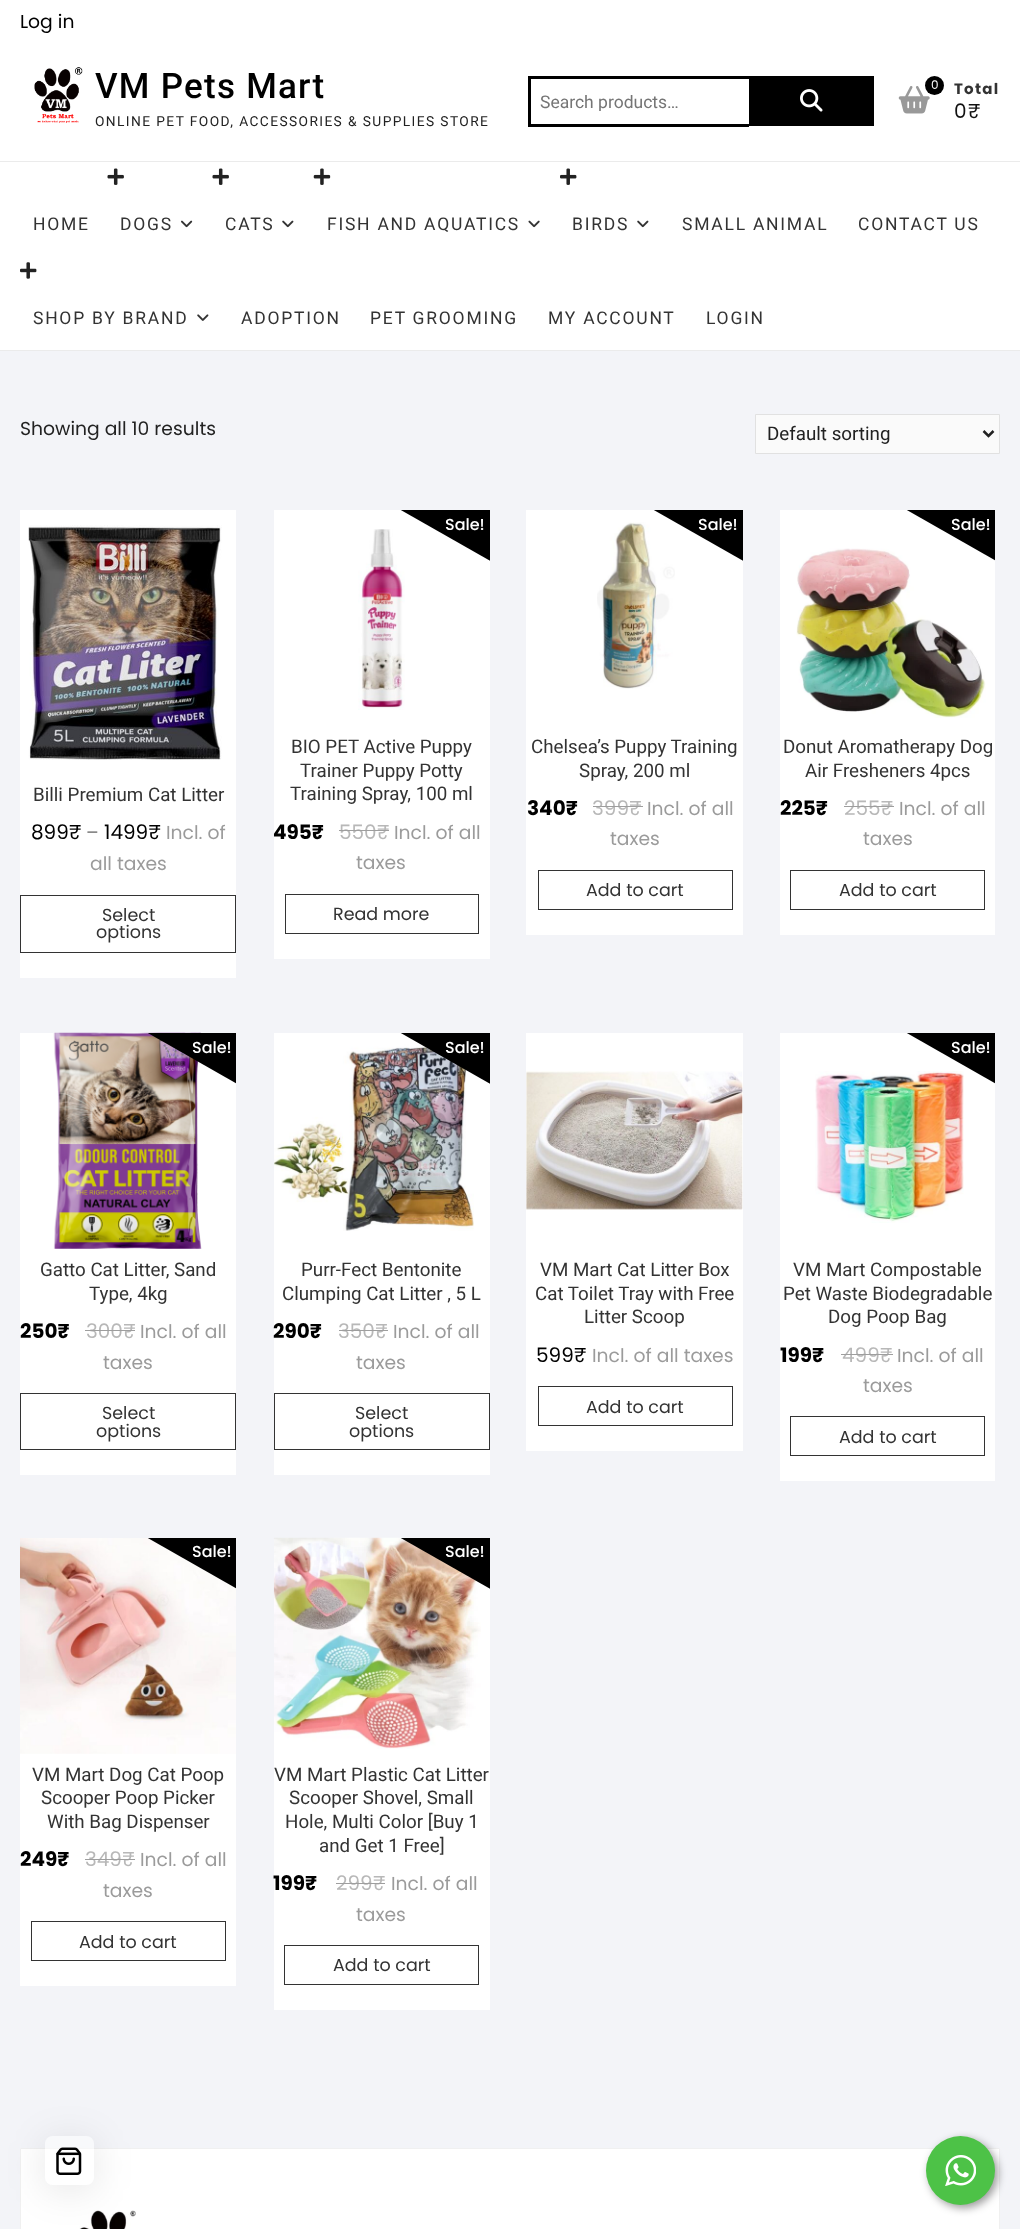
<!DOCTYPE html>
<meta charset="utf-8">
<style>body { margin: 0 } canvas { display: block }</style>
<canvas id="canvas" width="1020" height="2229"></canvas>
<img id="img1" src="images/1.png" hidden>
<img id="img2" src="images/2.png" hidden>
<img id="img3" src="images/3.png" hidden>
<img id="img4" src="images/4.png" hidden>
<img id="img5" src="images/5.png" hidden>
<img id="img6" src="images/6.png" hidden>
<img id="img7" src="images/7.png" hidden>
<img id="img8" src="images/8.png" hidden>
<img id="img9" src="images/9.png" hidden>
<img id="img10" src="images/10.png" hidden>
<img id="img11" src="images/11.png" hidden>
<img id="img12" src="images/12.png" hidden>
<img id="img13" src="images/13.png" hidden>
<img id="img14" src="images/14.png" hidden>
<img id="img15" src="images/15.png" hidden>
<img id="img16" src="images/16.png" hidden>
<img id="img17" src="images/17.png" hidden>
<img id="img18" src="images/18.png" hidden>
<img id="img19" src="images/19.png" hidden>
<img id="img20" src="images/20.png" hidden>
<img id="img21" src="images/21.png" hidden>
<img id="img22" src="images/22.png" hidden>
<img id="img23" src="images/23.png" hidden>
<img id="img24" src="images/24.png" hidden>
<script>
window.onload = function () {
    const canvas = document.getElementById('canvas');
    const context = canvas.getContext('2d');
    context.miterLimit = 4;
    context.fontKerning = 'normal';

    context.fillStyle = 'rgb(243, 244, 248)';
    context.fillRect(0, 0, 1020, 2229);
    context.fillStyle = 'rgb(255, 255, 255)';
    context.fillRect(0, 0, 1020, 350);
    context.drawImage(document.getElementById('img1'), 34, 67, 49, 56);
    context.fillStyle = 'rgb(0, 0, 0)';
    context.fillRect(528, 76, 221, 3);
    context.fillRect(528, 124, 221, 3);
    context.fillRect(528, 76, 3, 50);
    context.fillRect(749, 76, 125, 50);
    context.drawImage(document.getElementById('img2'), 800, 89, 23, 23);
    context.drawImage(document.getElementById('img3'), 898, 86, 32, 28);
    context.beginPath();
    context.arc(934.5, 85.5, 9.5, 0, 2 * Math.PI);
    context.fill();
    context.fillStyle = 'rgb(235, 235, 235)';
    context.fillRect(0, 161, 1020, 1);
    context.fillRect(0, 350, 1020, 1);
    context.drawImage(document.getElementById('img4'), 107, 168, 17, 17);
    context.drawImage(document.getElementById('img5'), 181, 220, 12, 8);
    context.drawImage(document.getElementById('img4'), 212, 168, 17, 17);
    context.drawImage(document.getElementById('img6'), 282, 220, 12, 8);
    context.drawImage(document.getElementById('img7'), 313, 168, 18, 17);
    context.drawImage(document.getElementById('img8'), 528, 220, 12, 8);
    context.drawImage(document.getElementById('img9'), 560, 168, 17, 17);
    context.drawImage(document.getElementById('img6'), 637, 220, 12, 8);
    context.drawImage(document.getElementById('img10'), 20, 262, 17, 17);
    context.drawImage(document.getElementById('img11'), 197, 314, 12, 7);
    context.fillStyle = 'rgb(250, 250, 250)';
    context.beginPath();
    context.rect(755.5, 414.5, 244, 39);
    context.fill();
    context.strokeStyle = 'rgb(225, 225, 225)';
    context.stroke();
    context.beginPath();
    context.moveTo(983.5, 431);
    context.lineTo(988.5, 436);
    context.lineTo(993.5, 431);
    context.strokeStyle = 'rgb(34, 34, 34)';
    context.lineWidth = 2.5;
    context.stroke();
    context.fillStyle = 'rgb(255, 255, 255)';
    context.fillRect(20, 510, 216, 468);
    context.drawImage(document.getElementById('img12'), 28, 525, 194, 235);
    context.strokeStyle = 'rgb(51, 51, 51)';
    context.lineWidth = 1;
    context.strokeRect(20.5, 895.5, 215, 57);
    context.fillRect(274, 510, 216, 449);
    context.drawImage(document.getElementById('img13'), 358, 529, 47, 181);
    context.save();
    context.beginPath();
    context.rect(274, 510, 216, 449);
    context.clip();
    context.fillStyle = 'rgb(0, 0, 0)';
    context.beginPath();
    context.moveTo(378, 497);
    context.lineTo(428, 410);
    context.lineTo(542, 476);
    context.lineTo(492, 562);
    context.closePath();
    context.fill();
    context.restore();
    context.strokeRect(285.5, 894.5, 193, 39);
    context.fillRect(526, 510, 217, 425);
    context.drawImage(document.getElementById('img14'), 597, 522, 78, 167);
    context.save();
    context.beginPath();
    context.rect(526, 510, 217, 425);
    context.clip();
    context.fillStyle = 'rgb(0, 0, 0)';
    context.beginPath();
    context.moveTo(631, 497);
    context.lineTo(681, 410);
    context.lineTo(795, 476);
    context.lineTo(745, 562);
    context.closePath();
    context.fill();
    context.restore();
    context.strokeRect(538.5, 870.5, 194, 39);
    context.fillRect(780, 510, 215, 425);
    context.drawImage(document.getElementById('img15'), 796, 548, 190, 170);
    context.save();
    context.beginPath();
    context.rect(780, 510, 215, 425);
    context.clip();
    context.fillStyle = 'rgb(0, 0, 0)';
    context.beginPath();
    context.moveTo(884, 497);
    context.lineTo(934, 410);
    context.lineTo(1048, 476);
    context.lineTo(998, 562);
    context.closePath();
    context.fill();
    context.restore();
    context.strokeRect(790.5, 870.5, 194, 39);
    context.fillRect(20, 1033, 216, 442);
    context.drawImage(document.getElementById('img16'), 53, 1032, 149, 217);
    context.save();
    context.beginPath();
    context.rect(20, 1033, 216, 442);
    context.clip();
    context.fillStyle = 'rgb(0, 0, 0)';
    context.beginPath();
    context.moveTo(125, 1020);
    context.lineTo(175, 933);
    context.lineTo(289, 999);
    context.lineTo(239, 1085);
    context.closePath();
    context.fill();
    context.restore();
    context.strokeRect(20.5, 1393.5, 215, 56);
    context.fillRect(274, 1033, 216, 442);
    context.drawImage(document.getElementById('img17'), 274, 1040, 200, 191);
    context.save();
    context.beginPath();
    context.rect(274, 1033, 216, 442);
    context.clip();
    context.fillStyle = 'rgb(0, 0, 0)';
    context.beginPath();
    context.moveTo(378, 1020);
    context.lineTo(428, 933);
    context.lineTo(542, 999);
    context.lineTo(492, 1085);
    context.closePath();
    context.fill();
    context.restore();
    context.strokeRect(274.5, 1393.5, 215, 56);
    context.fillRect(526, 1033, 217, 418);
    context.drawImage(document.getElementById('img18'), 526, 1071, 217, 139);
    context.strokeRect(538.5, 1386.5, 194, 39);
    context.fillRect(780, 1033, 215, 448);
    context.drawImage(document.getElementById('img19'), 815, 1071, 149, 152);
    context.save();
    context.beginPath();
    context.rect(780, 1033, 215, 448);
    context.clip();
    context.fillStyle = 'rgb(0, 0, 0)';
    context.beginPath();
    context.moveTo(884, 1020);
    context.lineTo(934, 933);
    context.lineTo(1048, 999);
    context.lineTo(998, 1085);
    context.closePath();
    context.fill();
    context.restore();
    context.strokeRect(790.5, 1416.5, 194, 39);
    context.fillRect(20, 1753, 216, 233);
    context.drawImage(document.getElementById('img20'), 20, 1538, 216, 216);
    context.save();
    context.beginPath();
    context.rect(20, 1538, 216, 448);
    context.clip();
    context.fillStyle = 'rgb(0, 0, 0)';
    context.beginPath();
    context.moveTo(125, 1525);
    context.lineTo(175, 1438);
    context.lineTo(289, 1504);
    context.lineTo(239, 1590);
    context.closePath();
    context.fill();
    context.restore();
    context.strokeRect(31.5, 1921.5, 194, 39);
    context.fillRect(274, 1583, 216, 427);
    context.drawImage(document.getElementById('img21'), 273, 1537, 208, 212);
    context.save();
    context.beginPath();
    context.rect(274, 1538, 216, 472);
    context.clip();
    context.fillStyle = 'rgb(0, 0, 0)';
    context.beginPath();
    context.moveTo(378, 1525);
    context.lineTo(428, 1438);
    context.lineTo(542, 1504);
    context.lineTo(492, 1590);
    context.closePath();
    context.fill();
    context.restore();
    context.strokeRect(284.5, 1945.5, 194, 39);
    context.beginPath();
    context.rect(20.5, 2148.5, 979, 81);
    context.fill();
    context.strokeStyle = 'rgb(240, 240, 240)';
    context.stroke();
    context.drawImage(document.getElementById('img22'), 79, 2210, 57, 19);
    context.save();
    context.beginPath();
    context.moveTo(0, 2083);
    context.lineTo(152, 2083);
    context.lineTo(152, 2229);
    context.lineTo(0, 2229);
    context.closePath();
    context.moveTo(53, 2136);
    context.lineTo(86, 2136);
    context.bezierCurveTo(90.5, 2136, 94, 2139.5, 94, 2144);
    context.lineTo(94, 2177);
    context.bezierCurveTo(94, 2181.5, 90.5, 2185, 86, 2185);
    context.lineTo(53, 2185);
    context.bezierCurveTo(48.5, 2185, 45, 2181.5, 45, 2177);
    context.lineTo(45, 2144);
    context.bezierCurveTo(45, 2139.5, 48.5, 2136, 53, 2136);
    context.closePath();
    context.clip('evenodd');
    context.fillStyle = 'rgba(0, 0, 0, 0.1)';
    context.filter = 'blur(19px)';
    context.beginPath();
    context.roundRect(45, 2141, 49, 49, 8);
    context.fill();
    context.filter = 'none';
    context.restore();
    context.fillStyle = 'rgba(255, 255, 255, 0.44)';
    context.beginPath();
    context.roundRect(45, 2136, 49, 49, 8);
    context.fill();
    context.drawImage(document.getElementById('img23'), 56, 2147, 26, 28);
    context.fillStyle = 'rgba(0, 0, 0, 0.4)';
    context.filter = 'blur(4px)';
    context.beginPath();
    context.roundRect(929, 2139, 69, 69, 34.5);
    context.fill();
    context.filter = 'none';
    context.fillStyle = 'rgb(77, 194, 71)';
    context.beginPath();
    context.arc(960.5, 2170.5, 34.5, 0, 2 * Math.PI);
    context.fill();
    context.drawImage(document.getElementById('img24'), 945, 2155, 31, 31);
    context.font = '18.75px Poppins';
    context.fillStyle = 'rgb(0, 0, 0)';
    context.fillText('Log in', 20, 28);
    context.letterSpacing = '1.25px';
    context.font = '500 35px Roboto';
    context.fillText('VM Pets Mart', 95, 98);
    context.letterSpacing = '1.4px';
    context.font = '13.75px Roboto';
    context.fillStyle = 'rgb(34, 34, 34)';
    context.fillText('ONLINE PET FOOD, ACCESSORIES & SUPPLIES STORE', 95, 126);
    context.save();
    context.beginPath();
    context.rect(540, 91, 181, 20);
    context.clip();
    context.letterSpacing = '0px';
    context.font = '17.5px Roboto';
    context.fillStyle = 'rgb(117, 117, 117)';
    context.fillText('Search products…', 540, 108);
    context.restore();
    context.letterSpacing = '0px';
    context.font = '12px Poppins';
    context.fillStyle = 'rgb(255, 255, 255)';
    context.fillText('0', 931, 89);
    context.letterSpacing = '1.25px';
    context.font = 'bold 15px Poppins';
    context.fillStyle = 'rgb(51, 51, 51)';
    context.fillText('Total', 954, 94);
    context.font = '20px Poppins';
    context.fillStyle = 'rgb(17, 17, 17)';
    context.fillText('0₹', 954, 118);
    context.letterSpacing = '1.75px';
    context.font = '17.5px Roboto';
    context.fillStyle = 'rgb(51, 51, 51)';
    context.fillText('HOME', 33, 230);
    context.fillText('DOGS', 120, 230);
    context.fillText('CATS', 225, 230);
    context.fillText('FISH AND AQUATICS', 327, 230);
    context.fillText('BIRDS', 572, 230);
    context.fillText('SMALL ANIMAL', 682, 230);
    context.fillText('CONTACT US', 858, 230);
    context.fillText('SHOP BY BRAND', 33, 324);
    context.fillText('ADOPTION', 241, 324);
    context.fillText('PET GROOMING', 370, 324);
    context.fillText('MY ACCOUNT', 548, 324);
    context.fillText('LOGIN', 706, 324);
    context.letterSpacing = '0px';
    context.font = '18.75px Poppins';
    context.fillStyle = 'rgb(34, 34, 34)';
    context.fillText('Showing all 10 results', 20, 435);
    context.font = '18.75px Roboto';
    context.fillText('Default sorting', 767, 440);
    context.fillStyle = 'rgb(51, 51, 51)';
    context.fillText('Billi Premium Cat Litter', 33, 801);
    context.font = '20px Poppins';
    context.fillStyle = 'rgb(0, 0, 0)';
    context.fillText('899₹', 31, 839);
    context.font = '18.75px Poppins';
    context.fillStyle = 'rgb(117, 117, 117)';
    context.fillText('–', 86, 839);
    context.font = '20px Poppins';
    context.fillStyle = 'rgb(0, 0, 0)';
    context.fillText('1499₹', 104, 839);
    context.font = '18.75px Poppins';
    context.fillStyle = 'rgb(155, 155, 155)';
    context.fillText('Incl. of', 166, 839);
    context.fillText('all taxes', 90, 870);
    context.font = '17.5px Poppins';
    context.fillStyle = 'rgb(51, 51, 51)';
    context.fillText('Select', 102, 921);
    context.fillText('options', 96, 938);
    context.font = '500 16px Poppins';
    context.fillStyle = 'rgb(255, 255, 255)';
    context.fillText('Sale!', 445, 530);
    context.font = '18.75px Roboto';
    context.fillStyle = 'rgb(51, 51, 51)';
    context.fillText('BIO PET Active Puppy', 291, 753);
    context.fillText('Trainer Puppy Potty', 300, 777);
    context.fillText('Training Spray, 100 ml', 290, 800);
    context.font = 'bold 20px Poppins';
    context.fillStyle = 'rgb(0, 0, 0)';
    context.fillText('495₹', 273, 839);
    context.font = '20px Poppins';
    context.fillStyle = 'rgb(184, 184, 184)';
    context.fillText('550₹', 339, 839);
    context.fillStyle = 'rgb(158, 158, 158)';
    context.fillRect(339, 830, 50, 1);
    context.font = '18.75px Poppins';
    context.fillStyle = 'rgb(155, 155, 155)';
    context.fillText('Incl. of all', 394, 839);
    context.fillText('taxes', 356, 869);
    context.font = '17.5px Poppins';
    context.fillStyle = 'rgb(51, 51, 51)';
    context.fillText('Read more', 333, 920);
    context.font = '500 16px Poppins';
    context.fillStyle = 'rgb(255, 255, 255)';
    context.fillText('Sale!', 698, 530);
    context.font = '18.75px Roboto';
    context.fillStyle = 'rgb(51, 51, 51)';
    context.fillText('Chelsea’s Puppy Training', 531, 753);
    context.fillText('Spray, 200 ml', 579, 777);
    context.font = 'bold 20px Poppins';
    context.fillStyle = 'rgb(0, 0, 0)';
    context.fillText('340₹', 527, 815);
    context.font = '20px Poppins';
    context.fillStyle = 'rgb(184, 184, 184)';
    context.fillText('399₹', 592, 815);
    context.fillStyle = 'rgb(158, 158, 158)';
    context.fillRect(593, 806, 50, 1);
    context.font = '18.75px Poppins';
    context.fillStyle = 'rgb(155, 155, 155)';
    context.fillText('Incl. of all', 647, 815);
    context.fillText('taxes', 610, 845);
    context.font = '17.5px Poppins';
    context.fillStyle = 'rgb(51, 51, 51)';
    context.fillText('Add to cart', 586, 896);
    context.font = '500 16px Poppins';
    context.fillStyle = 'rgb(255, 255, 255)';
    context.fillText('Sale!', 951, 530);
    context.font = '18.75px Roboto';
    context.fillStyle = 'rgb(51, 51, 51)';
    context.fillText('Donut Aromatherapy Dog', 783, 753);
    context.fillText('Air Fresheners 4pcs', 805, 777);
    context.font = 'bold 20px Poppins';
    context.fillStyle = 'rgb(0, 0, 0)';
    context.fillText('225₹', 780, 815);
    context.font = '20px Poppins';
    context.fillStyle = 'rgb(184, 184, 184)';
    context.fillText('255₹', 844, 815);
    context.fillStyle = 'rgb(158, 158, 158)';
    context.fillRect(844, 806, 50, 1);
    context.font = '18.75px Poppins';
    context.fillStyle = 'rgb(155, 155, 155)';
    context.fillText('Incl. of all', 899, 815);
    context.fillText('taxes', 863, 845);
    context.font = '17.5px Poppins';
    context.fillStyle = 'rgb(51, 51, 51)';
    context.fillText('Add to cart', 839, 896);
    context.font = '500 16px Poppins';
    context.fillStyle = 'rgb(255, 255, 255)';
    context.fillText('Sale!', 192, 1053);
    context.font = '18.75px Roboto';
    context.fillStyle = 'rgb(51, 51, 51)';
    context.fillText('Gatto Cat Litter, Sand', 40, 1276);
    context.fillText('Type, 4kg', 89, 1300);
    context.font = 'bold 20px Poppins';
    context.fillStyle = 'rgb(0, 0, 0)';
    context.fillText('250₹', 20, 1338);
    context.font = '20px Poppins';
    context.fillStyle = 'rgb(184, 184, 184)';
    context.fillText('300₹', 86, 1338);
    context.fillStyle = 'rgb(158, 158, 158)';
    context.fillRect(85, 1330, 50, 1);
    context.font = '18.75px Poppins';
    context.fillStyle = 'rgb(155, 155, 155)';
    context.fillText('Incl. of all', 140, 1338);
    context.fillText('taxes', 103, 1369);
    context.font = '17.5px Poppins';
    context.fillStyle = 'rgb(51, 51, 51)';
    context.fillText('Select', 102, 1419);
    context.fillText('options', 96, 1437);
    context.font = '500 16px Poppins';
    context.fillStyle = 'rgb(255, 255, 255)';
    context.fillText('Sale!', 445, 1053);
    context.font = '18.75px Roboto';
    context.fillStyle = 'rgb(51, 51, 51)';
    context.fillText('Purr-Fect Bentonite', 301, 1276);
    context.fillText('Clumping Cat Litter , 5 L', 282, 1300);
    context.font = 'bold 20px Poppins';
    context.fillStyle = 'rgb(0, 0, 0)';
    context.fillText('290₹', 273, 1338);
    context.font = '20px Poppins';
    context.fillStyle = 'rgb(184, 184, 184)';
    context.fillText('350₹', 338, 1338);
    context.fillStyle = 'rgb(158, 158, 158)';
    context.fillRect(339, 1330, 49, 1);
    context.font = '18.75px Poppins';
    context.fillStyle = 'rgb(155, 155, 155)';
    context.fillText('Incl. of all', 393, 1338);
    context.fillText('taxes', 356, 1369);
    context.font = '17.5px Poppins';
    context.fillStyle = 'rgb(51, 51, 51)';
    context.fillText('Select', 355, 1419);
    context.fillText('options', 349, 1437);
    context.font = '18.75px Roboto';
    context.fillText('VM Mart Cat Litter Box', 540, 1276);
    context.fillText('Cat Toilet Tray with Free', 535, 1300);
    context.fillText('Litter Scoop', 584, 1323);
    context.font = '20px Poppins';
    context.fillStyle = 'rgb(0, 0, 0)';
    context.fillText('599₹', 536, 1362);
    context.font = '18.75px Poppins';
    context.fillStyle = 'rgb(155, 155, 155)';
    context.fillText('Incl. of all taxes', 592, 1362);
    context.font = '17.5px Poppins';
    context.fillStyle = 'rgb(51, 51, 51)';
    context.fillText('Add to cart', 586, 1413);
    context.font = '500 16px Poppins';
    context.fillStyle = 'rgb(255, 255, 255)';
    context.fillText('Sale!', 951, 1053);
    context.font = '18.75px Roboto';
    context.fillStyle = 'rgb(51, 51, 51)';
    context.fillText('VM Mart Compostable', 793, 1276);
    context.fillText('Pet Waste Biodegradable', 783, 1300);
    context.fillText('Dog Poop Bag', 828, 1323);
    context.font = 'bold 20px Poppins';
    context.fillStyle = 'rgb(0, 0, 0)';
    context.fillText('199₹', 780, 1362);
    context.font = '20px Poppins';
    context.fillStyle = 'rgb(184, 184, 184)';
    context.fillText('499₹', 842, 1362);
    context.fillStyle = 'rgb(158, 158, 158)';
    context.fillRect(841, 1354, 52, 1);
    context.font = '18.75px Poppins';
    context.fillStyle = 'rgb(155, 155, 155)';
    context.fillText('Incl. of all', 897, 1362);
    context.fillText('taxes', 863, 1392);
    context.font = '17.5px Poppins';
    context.fillStyle = 'rgb(51, 51, 51)';
    context.fillText('Add to cart', 839, 1443);
    context.font = '500 16px Poppins';
    context.fillStyle = 'rgb(255, 255, 255)';
    context.fillText('Sale!', 192, 1557);
    context.font = '18.75px Roboto';
    context.fillStyle = 'rgb(51, 51, 51)';
    context.fillText('VM Mart Dog Cat Poop', 32, 1781);
    context.fillText('Scooper Poop Picker', 41, 1804);
    context.fillText('With Bag Dispenser', 47, 1828);
    context.font = 'bold 20px Poppins';
    context.fillStyle = 'rgb(0, 0, 0)';
    context.fillText('249₹', 20, 1866);
    context.font = '20px Poppins';
    context.fillStyle = 'rgb(184, 184, 184)';
    context.fillText('349₹', 85, 1866);
    context.fillStyle = 'rgb(158, 158, 158)';
    context.fillRect(85, 1859, 50, 1);
    context.font = '18.75px Poppins';
    context.fillStyle = 'rgb(155, 155, 155)';
    context.fillText('Incl. of all', 140, 1866);
    context.fillText('taxes', 103, 1897);
    context.font = '17.5px Poppins';
    context.fillStyle = 'rgb(51, 51, 51)';
    context.fillText('Add to cart', 79, 1948);
    context.font = '500 16px Poppins';
    context.fillStyle = 'rgb(255, 255, 255)';
    context.fillText('Sale!', 445, 1557);
    context.font = '18.75px Roboto';
    context.fillStyle = 'rgb(51, 51, 51)';
    context.fillText('VM Mart Plastic Cat Litter', 274, 1781);
    context.fillText('Scooper Shovel, Small', 289, 1804);
    context.fillText('Hole, Multi Color [Buy 1', 285, 1828);
    context.fillText('and Get 1 Free]', 319, 1852);
    context.font = 'bold 20px Poppins';
    context.fillStyle = 'rgb(0, 0, 0)';
    context.fillText('199₹', 273, 1890);
    context.font = '20px Poppins';
    context.fillStyle = 'rgb(184, 184, 184)';
    context.fillText('299₹', 336, 1890);
    context.fillStyle = 'rgb(158, 158, 158)';
    context.fillRect(336, 1883, 49, 1);
    context.font = '18.75px Poppins';
    context.fillStyle = 'rgb(155, 155, 155)';
    context.fillText('Incl. of all', 391, 1890);
    context.fillText('taxes', 356, 1921);
    context.font = '17.5px Poppins';
    context.fillStyle = 'rgb(51, 51, 51)';
    context.fillText('Add to cart', 333, 1971);
};
</script>
